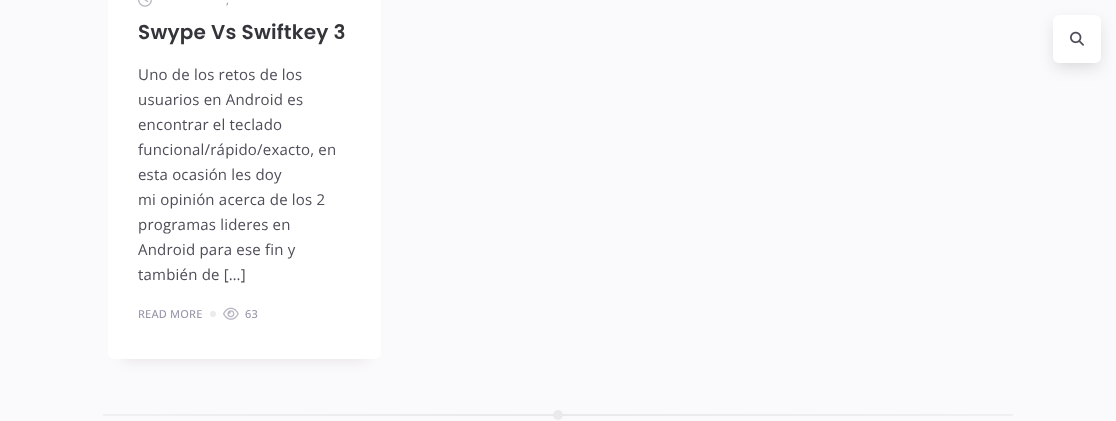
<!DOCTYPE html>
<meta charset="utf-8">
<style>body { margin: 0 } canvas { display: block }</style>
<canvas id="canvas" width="1116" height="421"></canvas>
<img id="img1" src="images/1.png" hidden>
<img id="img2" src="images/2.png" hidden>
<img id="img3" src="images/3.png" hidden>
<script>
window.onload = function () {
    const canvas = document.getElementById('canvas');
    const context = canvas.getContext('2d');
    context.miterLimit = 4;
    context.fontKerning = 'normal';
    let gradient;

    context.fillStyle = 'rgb(250, 249, 251)';
    context.fillRect(0, 0, 1116, 421);
    context.fillStyle = 'rgba(15, 14, 21, 0.1)';
    context.filter = 'blur(7.5px)';
    context.beginPath();
    context.rect(123, -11, 243, 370);
    context.fill();
    context.filter = 'none';
    context.fillStyle = 'rgb(255, 255, 255)';
    context.beginPath();
    context.roundRect(108, -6, 273, 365, 6);
    context.fill();
    context.drawImage(document.getElementById('img1'), 138, 0, 14, 7);
    context.fillStyle = 'rgb(235, 235, 238)';
    context.beginPath();
    context.arc(213, 314, 3, 0, 2 * Math.PI);
    context.fill();
    context.drawImage(document.getElementById('img2'), 223, 307, 16, 13);
    gradient = context.createLinearGradient(103, 415, 1013, 415);
    gradient.addColorStop(0, 'rgb(240, 239, 242)');
    gradient.addColorStop(0.5, 'rgb(233, 233, 236)');
    gradient.addColorStop(1, 'rgb(240, 239, 242)');
    context.fillStyle = gradient;
    context.fillRect(103, 414, 910, 2);
    context.fillStyle = 'rgb(234, 234, 237)';
    context.beginPath();
    context.arc(558, 415, 5, 0, 2 * Math.PI);
    context.fill();
    context.fillStyle = 'rgba(15, 14, 21, 0.14)';
    context.filter = 'blur(7.5px)';
    context.beginPath();
    context.roundRect(1055, 23, 44, 44, 4);
    context.fill();
    context.filter = 'none';
    context.fillStyle = 'rgb(255, 255, 255)';
    context.beginPath();
    context.roundRect(1053, 15, 48, 48, 6);
    context.fill();
    context.drawImage(document.getElementById('img3'), 1070, 31, 14, 15);
    context.letterSpacing = '0.2px';
    context.font = '500 11px Open Sans';
    context.fillStyle = 'rgb(152, 151, 169)';
    context.fillText(',', 226, 4);
    context.font = '600 20px Poppins';
    context.fillStyle = 'rgb(52, 52, 59)';
    context.fillText('Swype Vs Swiftkey 3', 138, 39);
    context.font = '15px Open Sans';
    context.fillStyle = 'rgb(78, 77, 88)';
    context.fillText('Uno de los retos de los', 138, 80);
    context.fillText('usuarios en Android es', 138, 105);
    context.fillText('encontrar el teclado', 138, 130);
    context.fillText('funcional/rápido/exacto, en', 138, 155);
    context.fillText('esta ocasión les doy', 138, 180);
    context.fillText('mi opinión acerca de los 2', 138, 205);
    context.fillText('programas lideres en', 138, 230);
    context.fillText('Android para ese fin y', 138, 255);
    context.fillText('también de […]', 138, 280);
    context.font = '500 11px Open Sans';
    context.fillStyle = 'rgb(152, 151, 169)';
    context.fillText('READ MORE', 138, 318);
    context.fillText('63', 245, 318);
};
</script>
